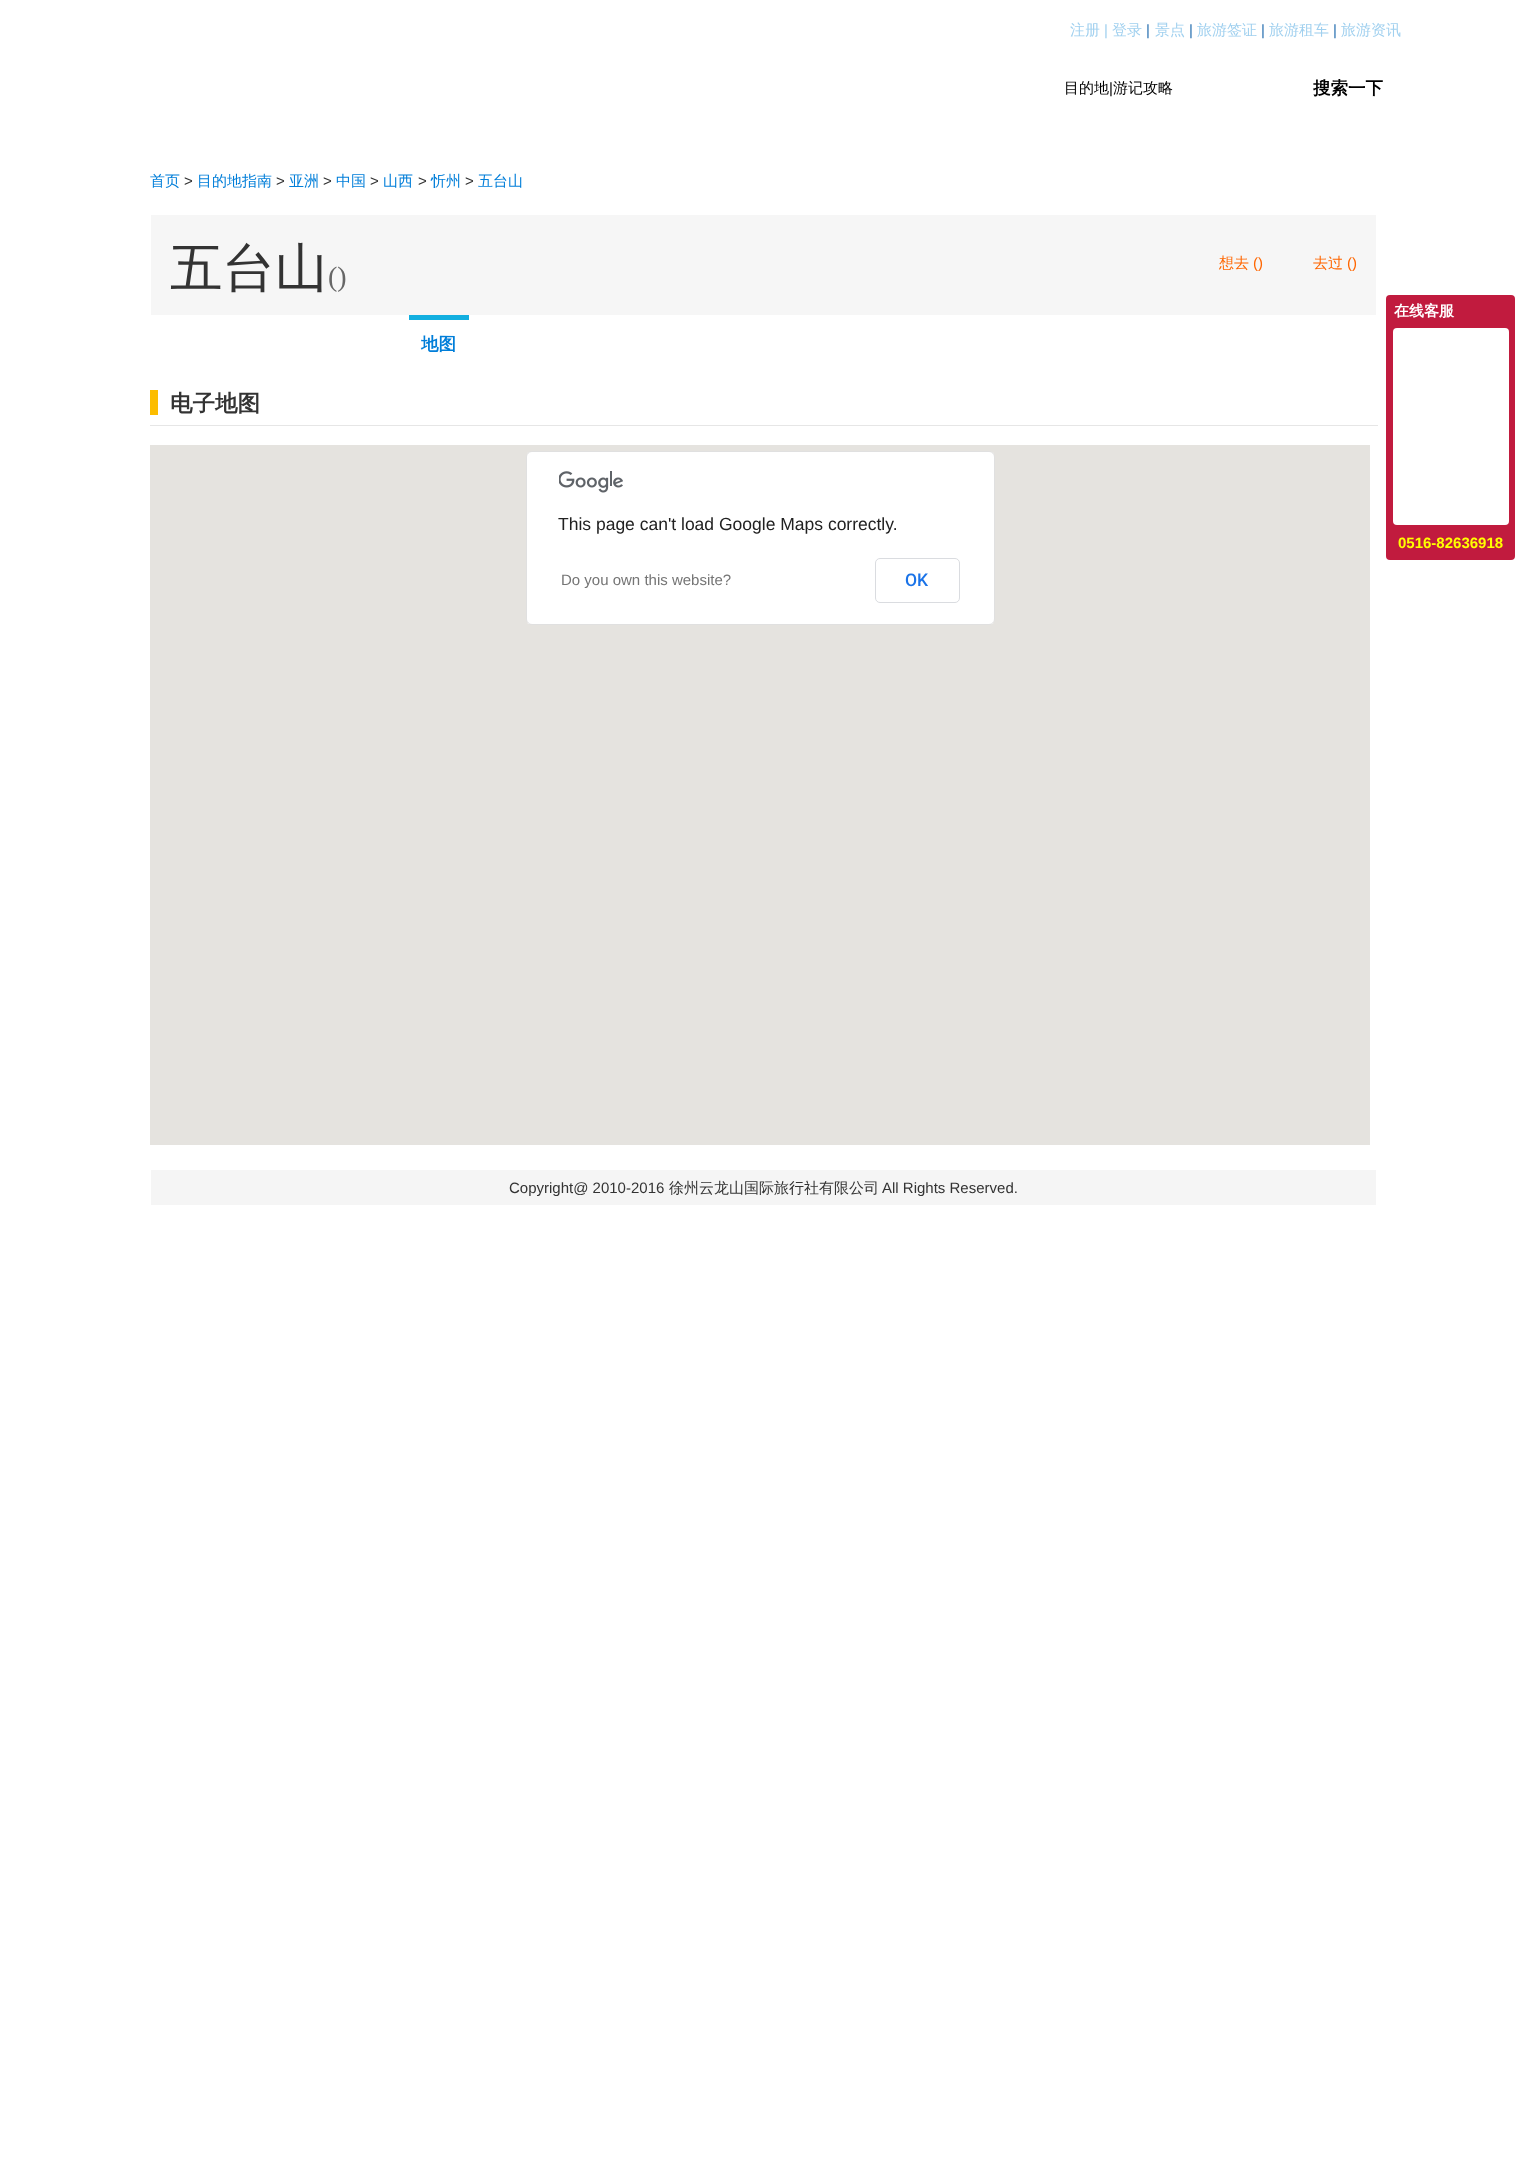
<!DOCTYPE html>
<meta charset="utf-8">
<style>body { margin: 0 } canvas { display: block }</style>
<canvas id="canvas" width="1527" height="2164"></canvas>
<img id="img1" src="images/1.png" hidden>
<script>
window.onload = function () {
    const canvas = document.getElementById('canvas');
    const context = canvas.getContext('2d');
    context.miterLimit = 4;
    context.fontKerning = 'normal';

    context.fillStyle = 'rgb(255, 255, 255)';
    context.fillRect(0, 0, 1527, 2164);
    context.fillStyle = 'rgb(246, 246, 246)';
    context.fillRect(151, 215, 1225, 100);
    context.fillStyle = 'rgb(19, 175, 224)';
    context.fillRect(409, 315, 60, 5);
    context.fillStyle = 'rgb(230, 230, 230)';
    context.fillRect(150, 425, 1228, 1);
    context.fillStyle = 'rgb(252, 189, 0)';
    context.fillRect(150, 390, 8, 25);
    context.fillStyle = 'rgb(229, 227, 223)';
    context.fillRect(150, 445, 1220, 700);
    context.fillStyle = 'rgb(255, 255, 255)';
    context.beginPath();
    context.roundRect(526, 451, 469, 174, 6);
    context.fill();
    context.beginPath();
    context.roundRect(526.5, 451.5, 468, 173, 5.5);
    context.strokeStyle = 'rgba(0, 0, 0, 0.12)';
    context.stroke();
    context.drawImage(document.getElementById('img1'), 559, 471, 64, 22);
    context.beginPath();
    context.roundRect(875.5, 558.5, 84, 44, 4.5);
    context.strokeStyle = 'rgb(218, 220, 224)';
    context.stroke();
    context.fillStyle = 'rgb(245, 245, 245)';
    context.fillRect(151, 1170, 1225, 35);
    context.fillStyle = 'rgb(193, 27, 62)';
    context.beginPath();
    context.roundRect(1386, 295, 129, 265, 4);
    context.fill();
    context.fillStyle = 'rgb(255, 255, 255)';
    context.beginPath();
    context.roundRect(1393, 328, 116, 197, 4);
    context.fill();
    context.font = '500 15px WenQuanYi Zen Hei';
    context.fillStyle = 'rgb(160, 208, 239)';
    context.fillText('注册', 1070, 35);
    context.font = '15px Liberation Sans';
    context.fillText('|', 1104, 35);
    context.font = '500 15px WenQuanYi Zen Hei';
    context.fillText('登录', 1112, 35);
    context.font = '15px Liberation Sans';
    context.fillStyle = 'rgb(41, 112, 177)';
    context.fillText('|', 1146, 35);
    context.font = '500 15px WenQuanYi Zen Hei';
    context.fillStyle = 'rgb(160, 208, 239)';
    context.fillText('景点', 1155, 35);
    context.font = '15px Liberation Sans';
    context.fillStyle = 'rgb(41, 112, 177)';
    context.fillText('|', 1189, 35);
    context.font = '500 15px WenQuanYi Zen Hei';
    context.fillStyle = 'rgb(160, 208, 239)';
    context.fillText('旅游签证', 1197, 35);
    context.font = '15px Liberation Sans';
    context.fillStyle = 'rgb(41, 112, 177)';
    context.fillText('|', 1261, 35);
    context.font = '500 15px WenQuanYi Zen Hei';
    context.fillStyle = 'rgb(160, 208, 239)';
    context.fillText('旅游租车', 1269, 35);
    context.font = '15px Liberation Sans';
    context.fillStyle = 'rgb(41, 112, 177)';
    context.fillText('|', 1333, 35);
    context.font = '500 15px WenQuanYi Zen Hei';
    context.fillStyle = 'rgb(160, 208, 239)';
    context.fillText('旅游资讯', 1341, 35);
    context.fillStyle = 'rgb(0, 0, 0)';
    context.fillText('目的地', 1064, 93);
    context.font = '15px Liberation Sans';
    context.fillText('|', 1109, 93);
    context.font = '500 15px WenQuanYi Zen Hei';
    context.fillText('游记攻略', 1113, 93);
    context.font = 'bold 17.5px WenQuanYi Zen Hei';
    context.fillText('搜索一下', 1313, 94);
    context.font = '500 15px WenQuanYi Zen Hei';
    context.fillStyle = 'rgb(0, 126, 217)';
    context.fillText('首页', 150, 186);
    context.font = '15px Liberation Sans';
    context.fillStyle = 'rgb(51, 51, 51)';
    context.fillText('>', 184, 186);
    context.font = '500 15px WenQuanYi Zen Hei';
    context.fillStyle = 'rgb(0, 126, 217)';
    context.fillText('目的地指南', 197, 186);
    context.font = '15px Liberation Sans';
    context.fillStyle = 'rgb(51, 51, 51)';
    context.fillText('>', 276, 186);
    context.font = '500 15px WenQuanYi Zen Hei';
    context.fillStyle = 'rgb(0, 126, 217)';
    context.fillText('亚洲', 289, 186);
    context.font = '15px Liberation Sans';
    context.fillStyle = 'rgb(51, 51, 51)';
    context.fillText('>', 323, 186);
    context.font = '500 15px WenQuanYi Zen Hei';
    context.fillStyle = 'rgb(0, 126, 217)';
    context.fillText('中国', 336, 186);
    context.font = '15px Liberation Sans';
    context.fillStyle = 'rgb(51, 51, 51)';
    context.fillText('>', 370, 186);
    context.font = '500 15px WenQuanYi Zen Hei';
    context.fillStyle = 'rgb(0, 126, 217)';
    context.fillText('山西', 383, 186);
    context.font = '15px Liberation Sans';
    context.fillStyle = 'rgb(51, 51, 51)';
    context.fillText('>', 418, 186);
    context.font = '500 15px WenQuanYi Zen Hei';
    context.fillStyle = 'rgb(0, 126, 217)';
    context.fillText('忻州', 431, 186);
    context.font = '15px Liberation Sans';
    context.fillStyle = 'rgb(51, 51, 51)';
    context.fillText('>', 465, 186);
    context.font = '500 15px WenQuanYi Zen Hei';
    context.fillStyle = 'rgb(0, 126, 217)';
    context.fillText('五台山', 478, 186);
    context.font = '500 52.5px WenQuanYi Zen Hei';
    context.fillStyle = 'rgb(51, 51, 51)';
    context.fillText('五台山', 170, 286);
    context.font = '28px Liberation Serif';
    context.fillStyle = 'rgb(102, 102, 102)';
    context.fillText('()', 328, 286);
    context.font = '500 15px WenQuanYi Zen Hei';
    context.fillStyle = 'rgb(255, 102, 0)';
    context.fillText('想去', 1219, 268);
    context.font = '15px Liberation Sans';
    context.fillText('()', 1253, 268);
    context.font = '500 15px WenQuanYi Zen Hei';
    context.fillText('去过', 1313, 268);
    context.font = '15px Liberation Sans';
    context.fillText('()', 1347, 268);
    context.font = 'bold 17.5px WenQuanYi Zen Hei';
    context.fillStyle = 'rgb(0, 126, 217)';
    context.fillText('地图', 421, 350);
    context.font = 'bold 22.5px WenQuanYi Zen Hei';
    context.fillStyle = 'rgb(51, 51, 51)';
    context.fillText('电子地图', 170, 411);
    context.font = '17.5px Liberation Sans';
    context.fillStyle = 'rgb(33, 33, 33)';
    context.fillText('This page can\'t load Google Maps correctly.', 558, 530);
    context.font = '15px Liberation Sans';
    context.fillStyle = 'rgb(117, 117, 117)';
    context.fillText('Do you own this website?', 561, 585);
    context.font = '500 17.5px Roboto';
    context.fillStyle = 'rgb(26, 115, 232)';
    context.fillText('OK', 905, 586);
    context.font = '15px Liberation Sans';
    context.fillStyle = 'rgb(51, 51, 51)';
    context.fillText('Copyright@ 2010-2016', 509, 1193);
    context.font = '500 15px WenQuanYi Zen Hei';
    context.fillText('徐州云龙山国际旅行社有限公司', 669, 1193);
    context.font = '15px Liberation Sans';
    context.fillText('All Rights Reserved.', 882, 1193);
    context.font = 'bold 15px WenQuanYi Zen Hei';
    context.fillStyle = 'rgb(255, 255, 255)';
    context.fillText('在线客服', 1394, 316);
    context.font = 'bold 15px Liberation Sans';
    context.fillStyle = 'rgb(255, 255, 0)';
    context.fillText('0516-82636918', 1398, 548);
};
</script>
